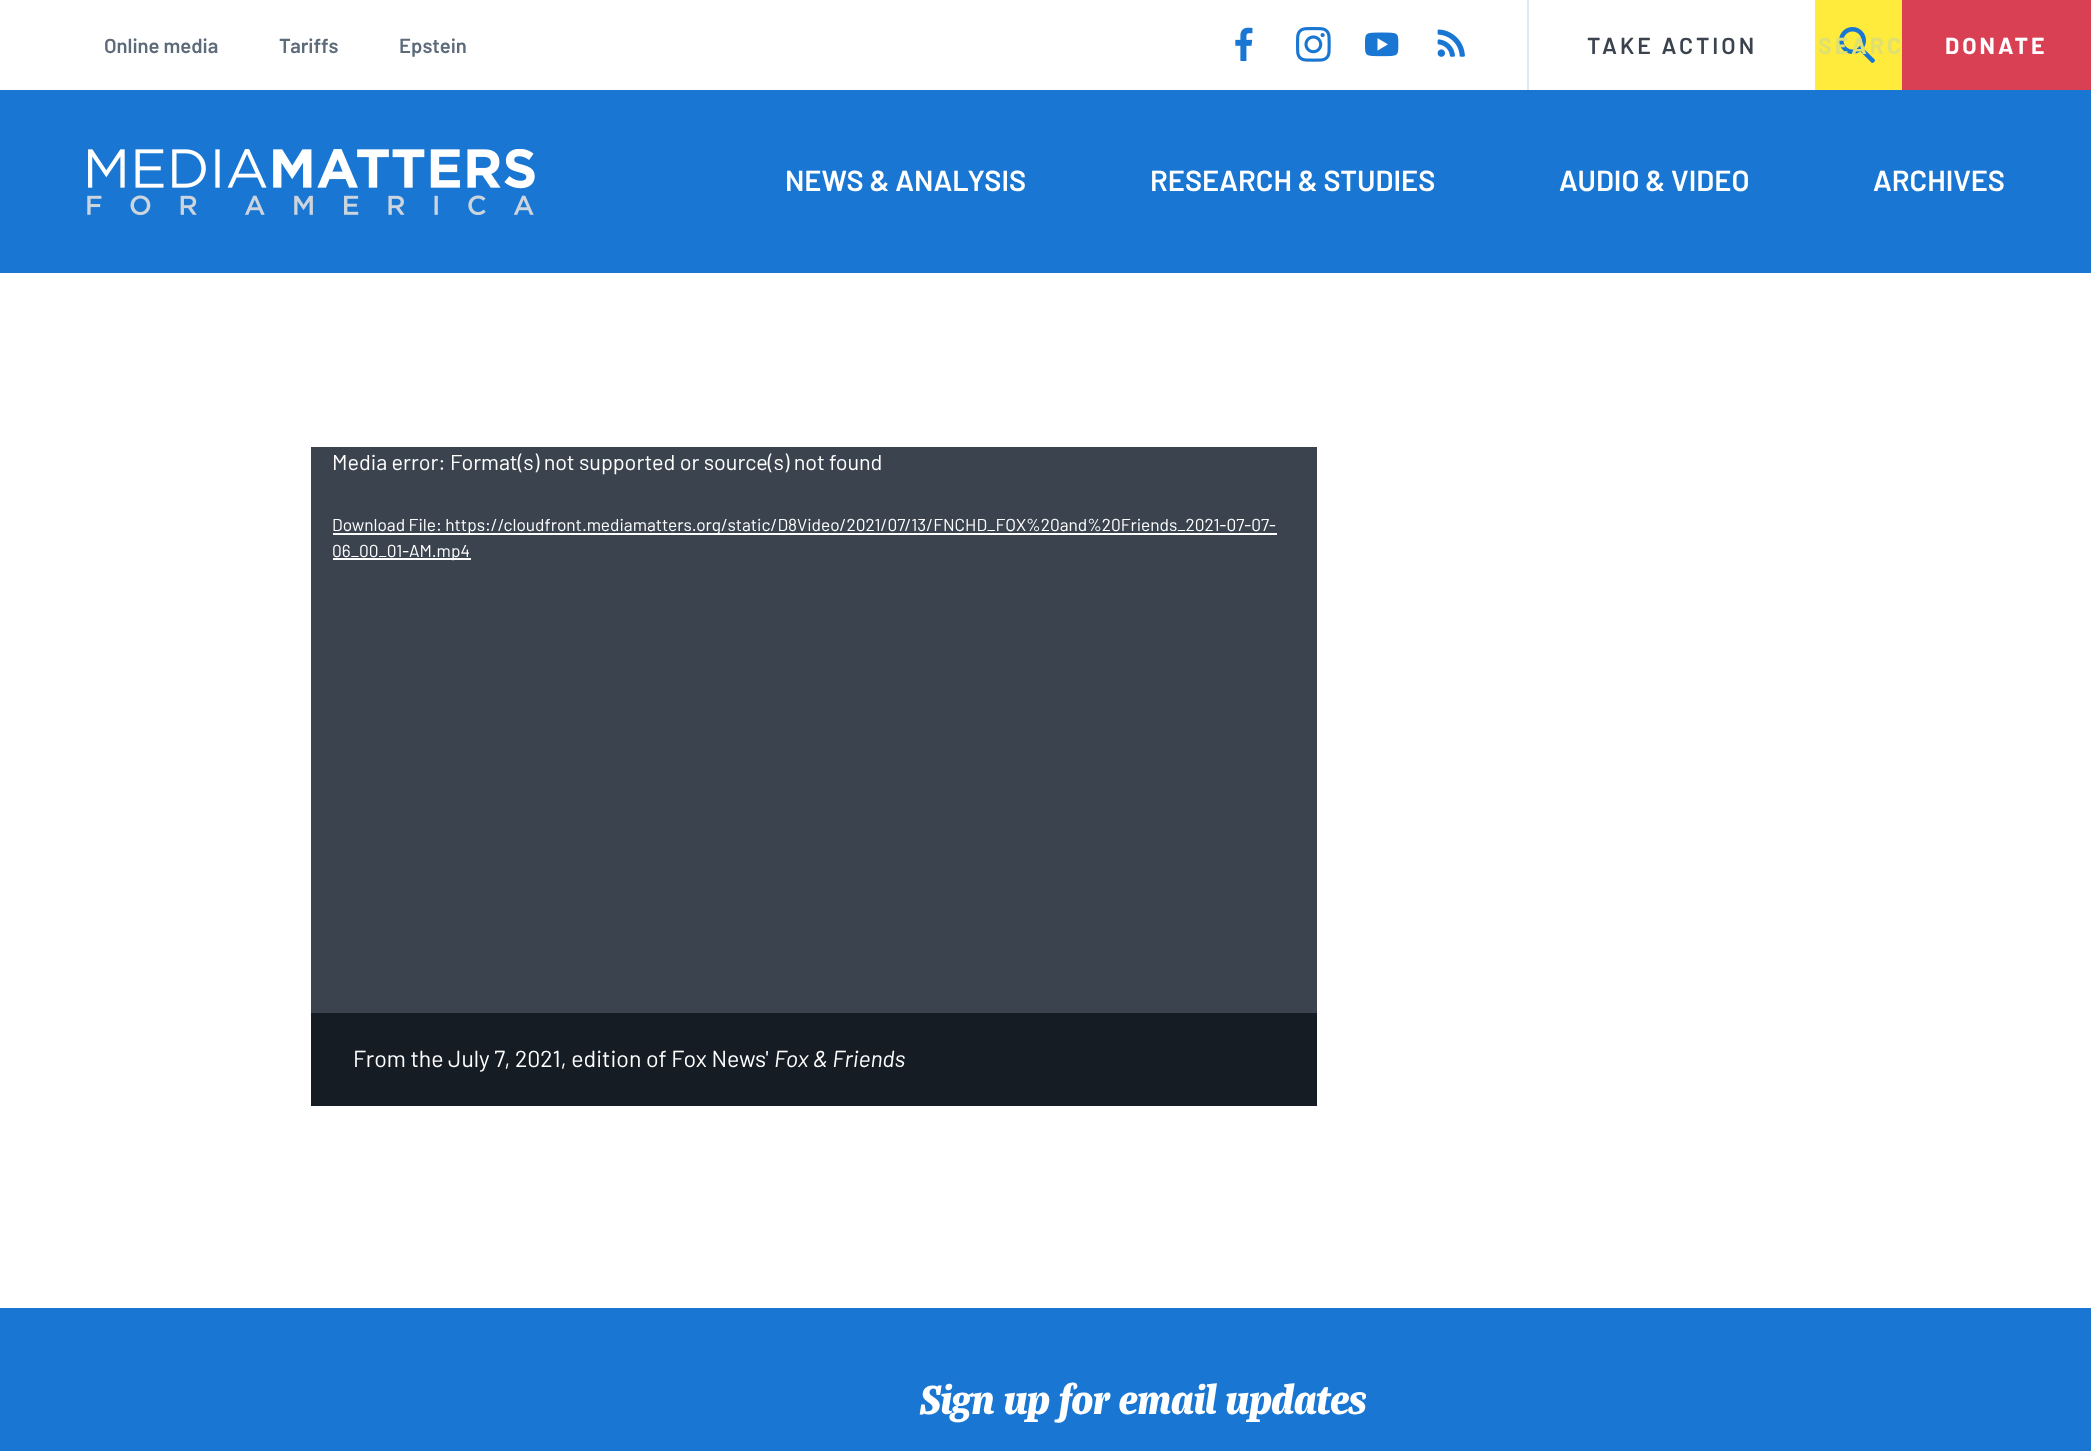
<!DOCTYPE html>
<meta charset="utf-8">
<style>body { margin: 0 } canvas { display: block }</style>
<canvas id="canvas" width="2091" height="1451"></canvas>
<img id="img1" src="images/1.png" hidden>
<img id="img2" src="images/2.png" hidden>
<img id="img3" src="images/3.png" hidden>
<img id="img4" src="images/4.png" hidden>
<img id="img5" src="images/5.png" hidden>
<img id="img6" src="images/6.png" hidden>
<script>
window.onload = function () {
    const canvas = document.getElementById('canvas');
    const context = canvas.getContext('2d');
    context.miterLimit = 4;
    context.fontKerning = 'normal';

    context.fillStyle = 'rgb(255, 255, 255)';
    context.fillRect(0, 0, 2091, 1451);
    context.drawImage(document.getElementById('img1'), 1235, 27, 18, 34);
    context.drawImage(document.getElementById('img2'), 1296, 27, 35, 35);
    context.drawImage(document.getElementById('img3'), 1365, 32, 34, 25);
    context.drawImage(document.getElementById('img4'), 1437, 29, 28, 28);
    context.fillStyle = 'rgb(224, 232, 240)';
    context.fillRect(1527, 0, 2, 90);
    context.fillStyle = 'rgb(255, 235, 59)';
    context.fillRect(1815, 0, 87, 90);
    context.drawImage(document.getElementById('img5'), 1839, 27, 36, 36);
    context.fillStyle = 'rgb(218, 64, 84)';
    context.fillRect(1902, 0, 189, 90);
    context.fillStyle = 'rgb(25, 118, 210)';
    context.fillRect(0, 90, 2091, 183);
    context.drawImage(document.getElementById('img6'), 87, 149, 448, 66);
    context.fillStyle = 'rgb(58, 67, 78)';
    context.fillRect(311, 447, 1006, 566);
    context.fillStyle = 'rgb(255, 255, 255)';
    context.fillRect(333, 533, 944, 2);
    context.fillRect(333, 558, 138, 2);
    context.fillStyle = 'rgb(22, 28, 36)';
    context.fillRect(311, 1013, 1006, 93);
    context.fillStyle = 'rgb(25, 118, 210)';
    context.fillRect(0, 1308, 2091, 143);
    context.font = '600 20.25px Barlow';
    context.fillStyle = 'rgb(93, 106, 121)';
    context.fillText('Online media', 104, 53);
    context.fillText('Tariffs', 279, 53);
    context.fillText('Epstein', 399, 53);
    context.letterSpacing = '3px';
    context.font = '600 23.1px Barlow';
    context.fillStyle = 'rgb(58, 67, 78)';
    context.fillText('TAKE ACTION', 1587, 54);
    context.font = 'bold 23.1px Barlow';
    context.fillStyle = 'rgb(224, 223, 113)';
    context.fillText('SEARC', 1818, 54);
    context.fillStyle = 'rgb(255, 255, 255)';
    context.fillText('DONATE', 1945, 54);
    context.letterSpacing = '0px';
    context.font = '600 29px Barlow';
    context.fillText('NEWS & ANALYSIS', 785, 191);
    context.fillText('RESEARCH & STUDIES', 1150, 191);
    context.fillText('AUDIO & VIDEO', 1559, 191);
    context.fillText('ARCHIVES', 1873, 191);
    context.font = '21.6px Barlow';
    context.fillText('Media error: Format(s) not supported or source(s) not found', 332, 470);
    context.font = '17.28px Barlow';
    context.fillText('Download File: https://cloudfront.mediamatters.org/static/D8Video/2021/07/13/FNCHD_FOX%20and%20Friends_2021-07-07-', 332, 531);
    context.fillText('06_00_01-AM.mp4', 332, 557);
    context.font = '23.1px Barlow';
    context.fillText('From the July 7, 2021, edition of Fox News\'', 353, 1067);
    context.font = 'italic 23.1px Barlow';
    context.fillText('Fox & Friends', 774, 1067);
    context.font = 'italic 800 43.4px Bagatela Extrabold';
    context.fillText('Sign up for email updates', 920, 1414);
};
</script>
